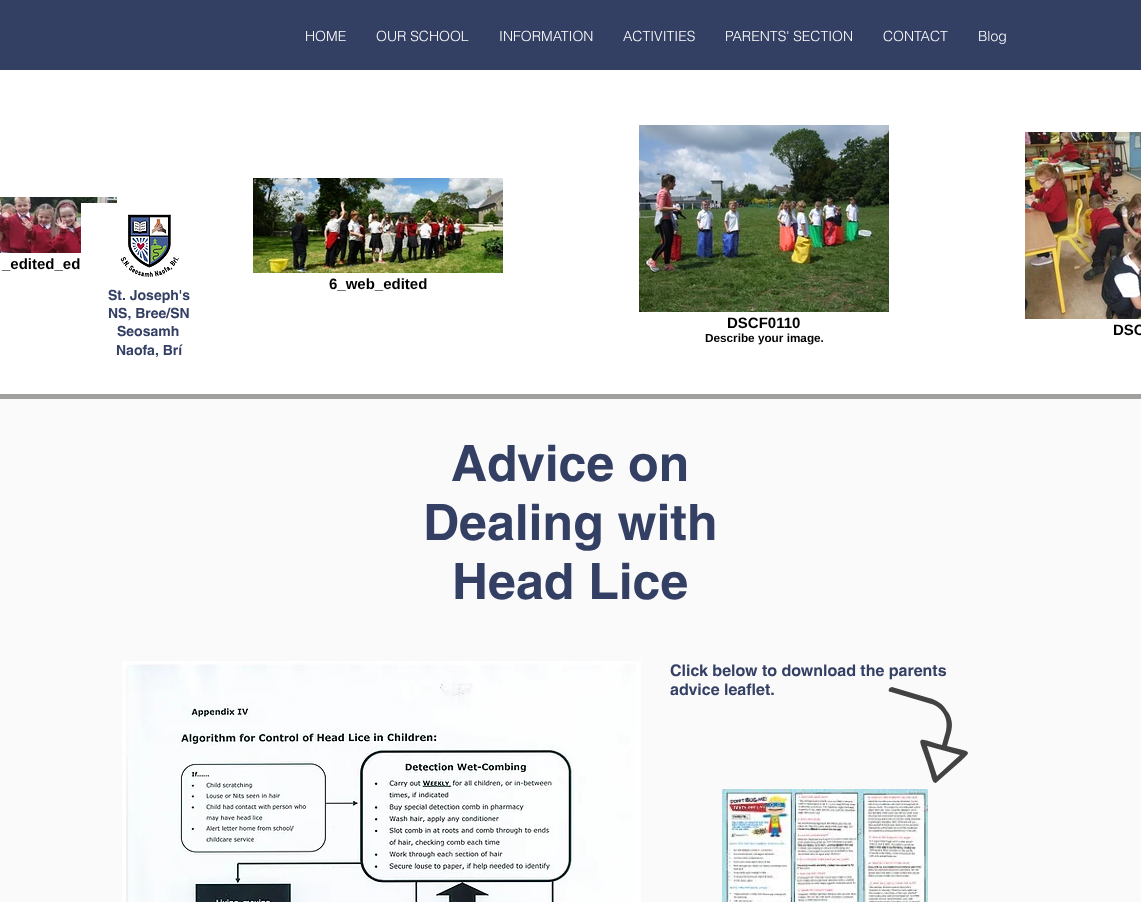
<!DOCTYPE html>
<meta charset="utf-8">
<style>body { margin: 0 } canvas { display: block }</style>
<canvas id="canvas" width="1141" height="902"></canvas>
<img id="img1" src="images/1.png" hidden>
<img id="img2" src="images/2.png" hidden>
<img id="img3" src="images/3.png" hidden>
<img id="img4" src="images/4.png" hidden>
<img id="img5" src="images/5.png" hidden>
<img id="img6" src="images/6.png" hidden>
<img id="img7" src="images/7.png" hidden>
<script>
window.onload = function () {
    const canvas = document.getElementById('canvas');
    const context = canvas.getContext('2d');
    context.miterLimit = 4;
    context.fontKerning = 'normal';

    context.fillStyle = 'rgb(250, 250, 250)';
    context.fillRect(0, 0, 1141, 902);
    context.fillStyle = 'rgb(52, 63, 100)';
    context.fillRect(0, 0, 1141, 70);
    context.fillStyle = 'rgb(255, 255, 255)';
    context.fillRect(0, 70, 1141, 324);
    context.drawImage(document.getElementById('img1'), 0, 197, 117, 56);
    context.drawImage(document.getElementById('img2'), 253, 178, 250, 95);
    context.drawImage(document.getElementById('img3'), 639, 125, 250, 187);
    context.drawImage(document.getElementById('img4'), 1025, 132, 116, 187);
    context.fillStyle = 'rgb(160, 160, 159)';
    context.fillRect(0, 394, 1141, 5);
    context.fillStyle = 'rgb(255, 255, 255)';
    context.fillRect(81, 203, 36, 50);
    context.drawImage(document.getElementById('img5'), 120, 214, 59, 64);
    context.drawImage(document.getElementById('img6'), 122, 661, 519, 241);
    context.fillStyle = 'rgb(66, 66, 66)';
    context.beginPath();
    context.moveTo(937, 782);
    context.lineTo(962, 760);
    context.bezierCurveTo(967, 755, 972, 752, 963, 750);
    context.lineTo(947, 746);
    context.lineTo(951, 732);
    context.bezierCurveTo(953, 725, 952, 717, 947, 711);
    context.bezierCurveTo(943, 704, 937, 700, 929, 698);
    context.lineTo(892, 687);
    context.bezierCurveTo(891, 687, 889, 688, 889, 689);
    context.bezierCurveTo(888, 691, 889, 692, 891, 692);
    context.lineTo(928, 703);
    context.bezierCurveTo(942, 706, 949, 718, 946, 731);
    context.lineTo(942, 745);
    context.bezierCurveTo(914, 737, 918, 735, 927, 762);
    context.lineTo(931, 775);
    context.bezierCurveTo(931, 775, 933, 786, 937, 782);
    context.closePath();
    context.moveTo(927, 746);
    context.lineTo(960, 755);
    context.lineTo(937, 776);
    context.closePath();
    context.fill();
    context.drawImage(document.getElementById('img7'), 722, 789, 206, 113);
    context.font = '300 14px helvetica';
    context.fillStyle = 'rgb(255, 255, 255)';
    context.fillText('HOME', 305, 41);
    context.fillText('OUR SCHOOL', 376, 41);
    context.fillText('INFORMATION', 499, 41);
    context.fillText('ACTIVITIES', 623, 41);
    context.fillText('PARENTS\' SECTION', 725, 41);
    context.fillText('CONTACT', 883, 41);
    context.fillText('Blog', 978, 41);
    context.font = 'bold 15px Liberation Sans';
    context.fillStyle = 'rgb(0, 0, 0)';
    context.fillText('_edited_ed', 2, 269);
    context.fillText('6_web_edited', 329, 289);
    context.fillText('DSCF0110', 727, 328);
    context.font = 'bold 11.75px Liberation Sans';
    context.fillText('Describe your image.', 705, 342);
    context.font = 'bold 15px Liberation Sans';
    context.fillText('DSC', 1113, 335);
    context.font = 'bold 14px helvetica';
    context.fillStyle = 'rgb(52, 63, 100)';
    context.fillText('St. Joseph\'s', 108, 300);
    context.fillText('NS, Bree/SN', 108, 318);
    context.fillText('Seosamh', 117, 336);
    context.fillText('Naofa, Brí', 116, 355);
    context.font = 'bold 50px helvetica';
    context.fillText('Advice on', 451, 481);
    context.fillText('Dealing with', 423, 540);
    context.fillText('Head Lice', 452, 599);
    context.font = 'bold 16px helvetica';
    context.fillText('Click below to download the parents', 670, 676);
    context.fillText('advice leaflet.', 670, 695);
};
</script>
